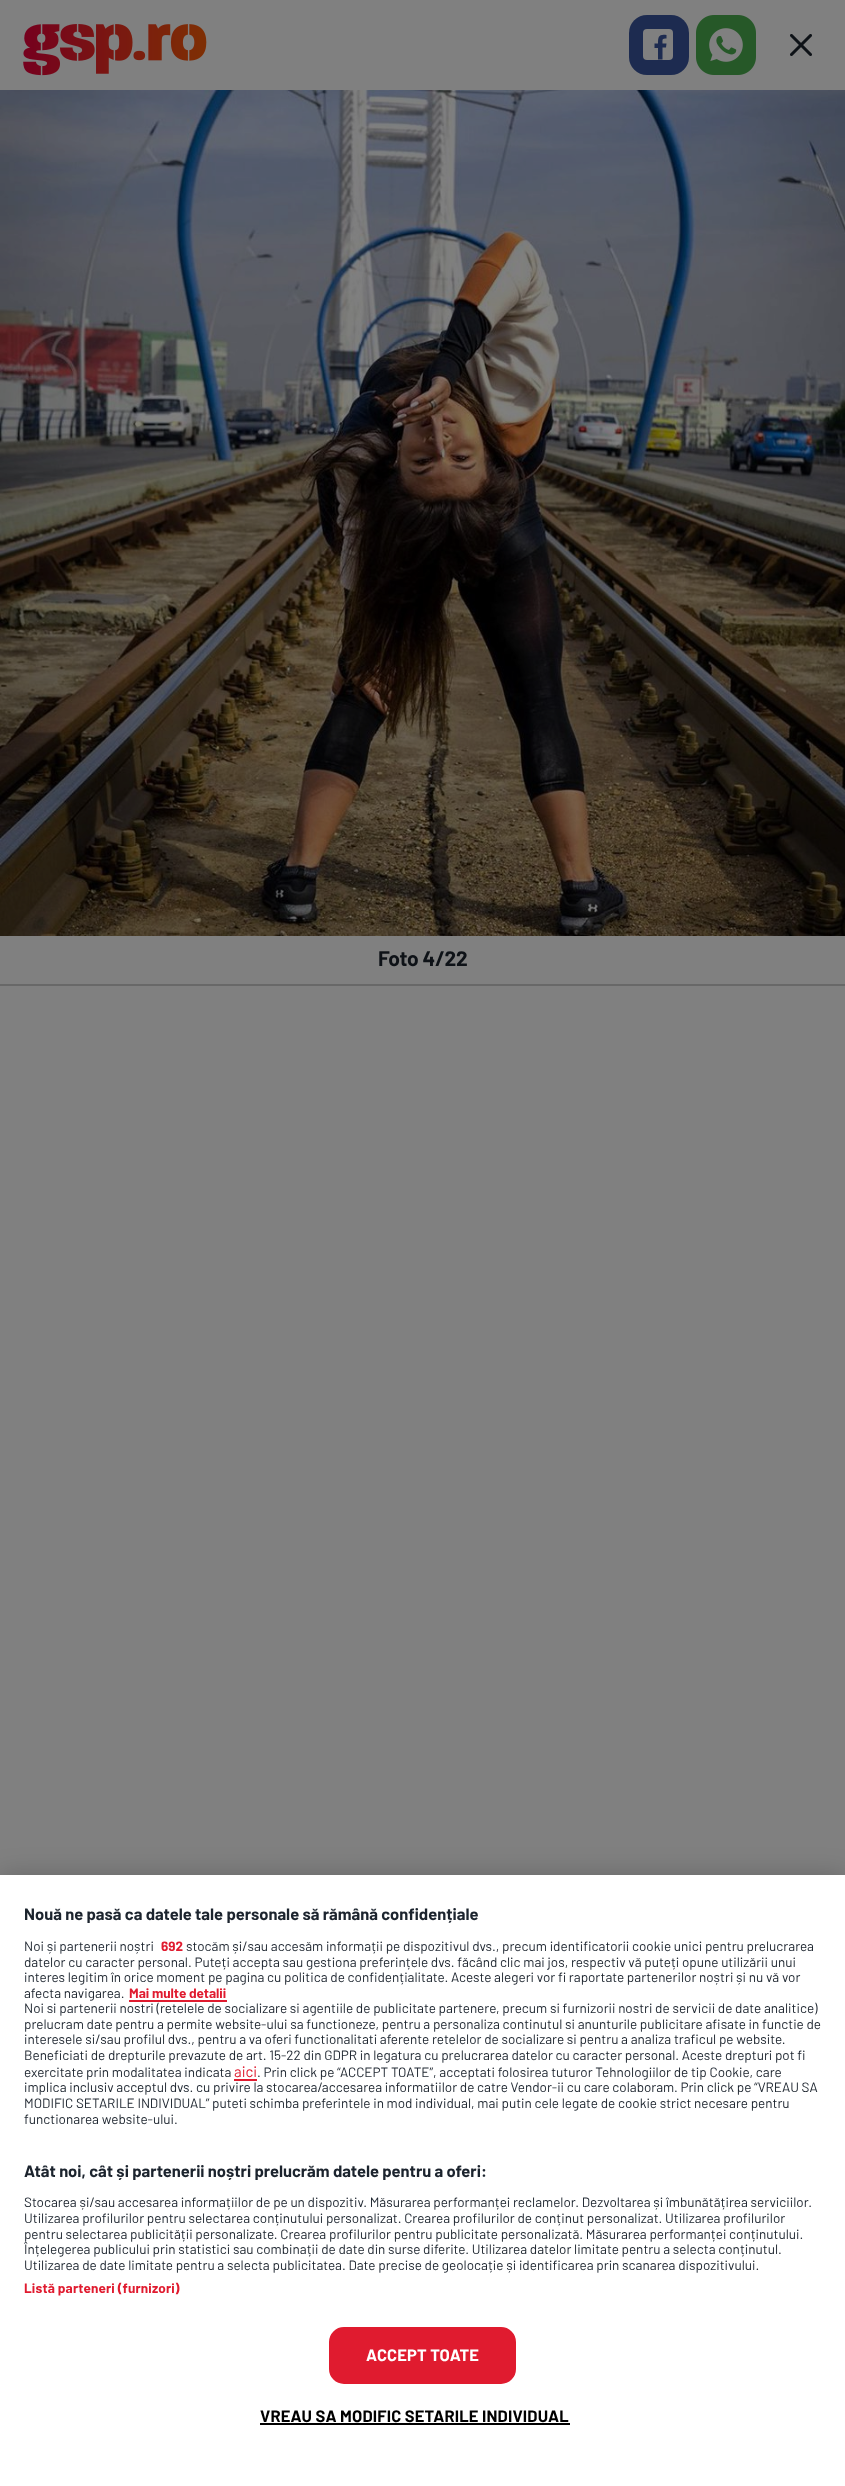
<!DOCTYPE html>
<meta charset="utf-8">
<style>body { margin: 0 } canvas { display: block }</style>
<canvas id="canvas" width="845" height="2486"></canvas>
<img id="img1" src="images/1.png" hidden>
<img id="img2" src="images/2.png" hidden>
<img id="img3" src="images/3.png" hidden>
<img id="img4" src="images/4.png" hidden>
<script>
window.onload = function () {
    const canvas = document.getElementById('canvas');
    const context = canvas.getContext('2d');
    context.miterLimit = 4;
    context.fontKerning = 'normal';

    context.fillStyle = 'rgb(128, 128, 128)';
    context.fillRect(0, 0, 845, 2486);
    context.drawImage(document.getElementById('img1'), 23, 24, 184, 52);
    context.fillStyle = 'rgb(29, 43, 80)';
    context.beginPath();
    context.roundRect(629, 15, 60, 60, 18);
    context.fill();
    context.fillStyle = 'rgb(128, 128, 128)';
    context.beginPath();
    context.roundRect(643, 29, 30, 31, 4);
    context.fill();
    context.fillStyle = 'rgb(29, 43, 80)';
    context.beginPath();
    context.moveTo(658, 59.5);
    context.lineTo(658, 48);
    context.lineTo(654.5, 48);
    context.lineTo(654.5, 43.5);
    context.lineTo(658, 43.5);
    context.bezierCurveTo(658, 36.5, 659, 34, 666.5, 35);
    context.lineTo(666.5, 38.5);
    context.bezierCurveTo(662, 38.5, 662.5, 39, 662.5, 43.5);
    context.lineTo(666.5, 43.5);
    context.lineTo(666, 47.5);
    context.lineTo(662.5, 47.5);
    context.lineTo(662.5, 59.5);
    context.closePath();
    context.fill();
    context.drawImage(document.getElementById('img2'), 696, 15, 60, 60);
    context.drawImage(document.getElementById('img3'), 790, 34, 22, 22);
    context.drawImage(document.getElementById('img4'), 0, 90, 845, 846);
    context.fillStyle = 'rgb(104, 104, 104)';
    context.fillRect(0, 984, 845, 2);
    context.fillStyle = 'rgba(0, 0, 0, 0.2)';
    context.filter = 'blur(13.5px)';
    context.beginPath();
    context.rect(0, 1875, 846, 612);
    context.fill();
    context.filter = 'none';
    context.fillStyle = 'rgb(255, 255, 255)';
    context.fillRect(0, 1875, 845, 611);
    context.fillStyle = 'rgb(224, 27, 47)';
    context.fillRect(129, 2000, 98, 2);
    context.fillRect(234, 2079, 23, 2);
    context.beginPath();
    context.roundRect(330, 2328, 185, 55, 14);
    context.fill();
    context.strokeStyle = 'rgb(224, 27, 47)';
    context.lineWidth = 2;
    context.stroke();
    context.fillStyle = 'rgb(0, 0, 0)';
    context.fillRect(260, 2423, 310, 2);
    context.letterSpacing = '-0.25px';
    context.font = 'bold 21px Barlow';
    context.fillStyle = 'rgb(14, 18, 23)';
    context.fillText('Foto 4/22', 378, 966);
    context.letterSpacing = '0px';
    context.font = 'bold 16.5px Barlow';
    context.fillStyle = 'rgb(28, 36, 46)';
    context.fillText('Nouă ne pasă ca datele tale personale să rămână confidențiale', 24, 1920);
    context.font = '13.5px Barlow';
    context.fillText('Noi și partenerii noștri', 24, 1951);
    context.font = 'bold 13.5px Barlow';
    context.fillStyle = 'rgb(224, 27, 47)';
    context.fillText('692', 161, 1951);
    context.font = '13.5px Barlow';
    context.fillStyle = 'rgb(28, 36, 46)';
    context.fillText('stocăm și/sau accesăm informații pe dispozitivul dvs., precum identificatorii cookie unici pentru prelucrarea', 186, 1951);
    context.fillText('datelor cu caracter personal. Puteți accepta sau gestiona preferințele dvs. făcând clic mai jos, respectiv vă puteți opune utilizării unui', 24, 1967);
    context.fillText('interes legitim în orice moment pe pagina cu politica de confidențialitate. Aceste alegeri vor fi raportate partenerilor noștri și nu vă vor', 24, 1982);
    context.fillText('afecta navigarea.', 24, 1998);
    context.font = 'bold 13.5px Barlow';
    context.fillStyle = 'rgb(224, 27, 47)';
    context.fillText('Mai multe detalii', 129, 1998);
    context.font = '13.5px Barlow';
    context.fillStyle = 'rgb(28, 36, 46)';
    context.fillText('Noi si partenerii nostri (retelele de socializare si agentiile de publicitate partenere, precum si furnizorii nostri de servicii de date analitice)', 24, 2013);
    context.fillText('prelucram date pentru a permite website-ului sa functioneze, pentru a personaliza continutul si anunturile publicitare afisate in functie de', 24, 2029);
    context.fillText('interesele si/sau profilul dvs., pentru a va oferi functionalitati aferente retelelor de socializare si pentru a analiza traficul pe website.', 24, 2044);
    context.fillText('Beneficiati de drepturile prevazute de art. 15-22 din GDPR in legatura cu prelucrarea datelor cu caracter personal. Aceste drepturi pot fi', 24, 2060);
    context.fillText('exercitate prin modalitatea indicata', 24, 2077);
    context.font = '15px Barlow';
    context.fillStyle = 'rgb(224, 27, 47)';
    context.fillText('aici', 234, 2077);
    context.font = '13.5px Barlow';
    context.fillStyle = 'rgb(28, 36, 46)';
    context.fillText('. Prin click pe “ACCEPT TOATE”, acceptati folosirea tuturor Tehnologiilor de tip Cookie, care', 257, 2077);
    context.fillText('implica inclusiv acceptul dvs. cu privire la stocarea/accesarea informatiilor de catre Vendor-ii cu care colaboram. Prin click pe “VREAU SA', 24, 2092);
    context.fillText('MODIFIC SETARILE INDIVIDUAL” puteti schimba preferintele in mod individual, mai putin cele legate de cookie strict necesare pentru', 24, 2108);
    context.fillText('functionarea website-ului.', 24, 2124);
    context.font = 'bold 16.5px Barlow';
    context.fillText('Atât noi, cât și partenerii noștri prelucrăm datele pentru a oferi:', 24, 2177);
    context.font = '13.5px Barlow';
    context.fillText('Stocarea și/sau accesarea informațiilor de pe un dispozitiv. Măsurarea performanței reclamelor. Dezvoltarea și îmbunătățirea serviciilor.', 24, 2207);
    context.fillText('Utilizarea profilurilor pentru selectarea conținutului personalizat. Crearea profilurilor de conținut personalizat. Utilizarea profilurilor', 24, 2223);
    context.fillText('pentru selectarea publicității personalizate. Crearea profilurilor pentru publicitate personalizată. Măsurarea performanței conținutului.', 24, 2239);
    context.fillText('Înțelegerea publicului prin statistici sau combinații de date din surse diferite. Utilizarea datelor limitate pentru a selecta conținutul.', 24, 2254);
    context.fillText('Utilizarea de date limitate pentru a selecta publicitatea. Date precise de geolocație și identificarea prin scanarea dispozitivului.', 24, 2270);
    context.letterSpacing = '0.15px';
    context.font = 'bold 13.5px Barlow';
    context.fillStyle = 'rgb(224, 27, 47)';
    context.fillText('Listă parteneri (furnizori)', 24, 2293);
    context.font = 'bold 16.5px Barlow';
    context.fillStyle = 'rgb(255, 255, 255)';
    context.fillText('ACCEPT TOATE', 366, 2361);
    context.fillStyle = 'rgb(0, 0, 0)';
    context.fillText('VREAU SA MODIFIC SETARILE INDIVIDUAL', 260, 2422);
};
</script>
